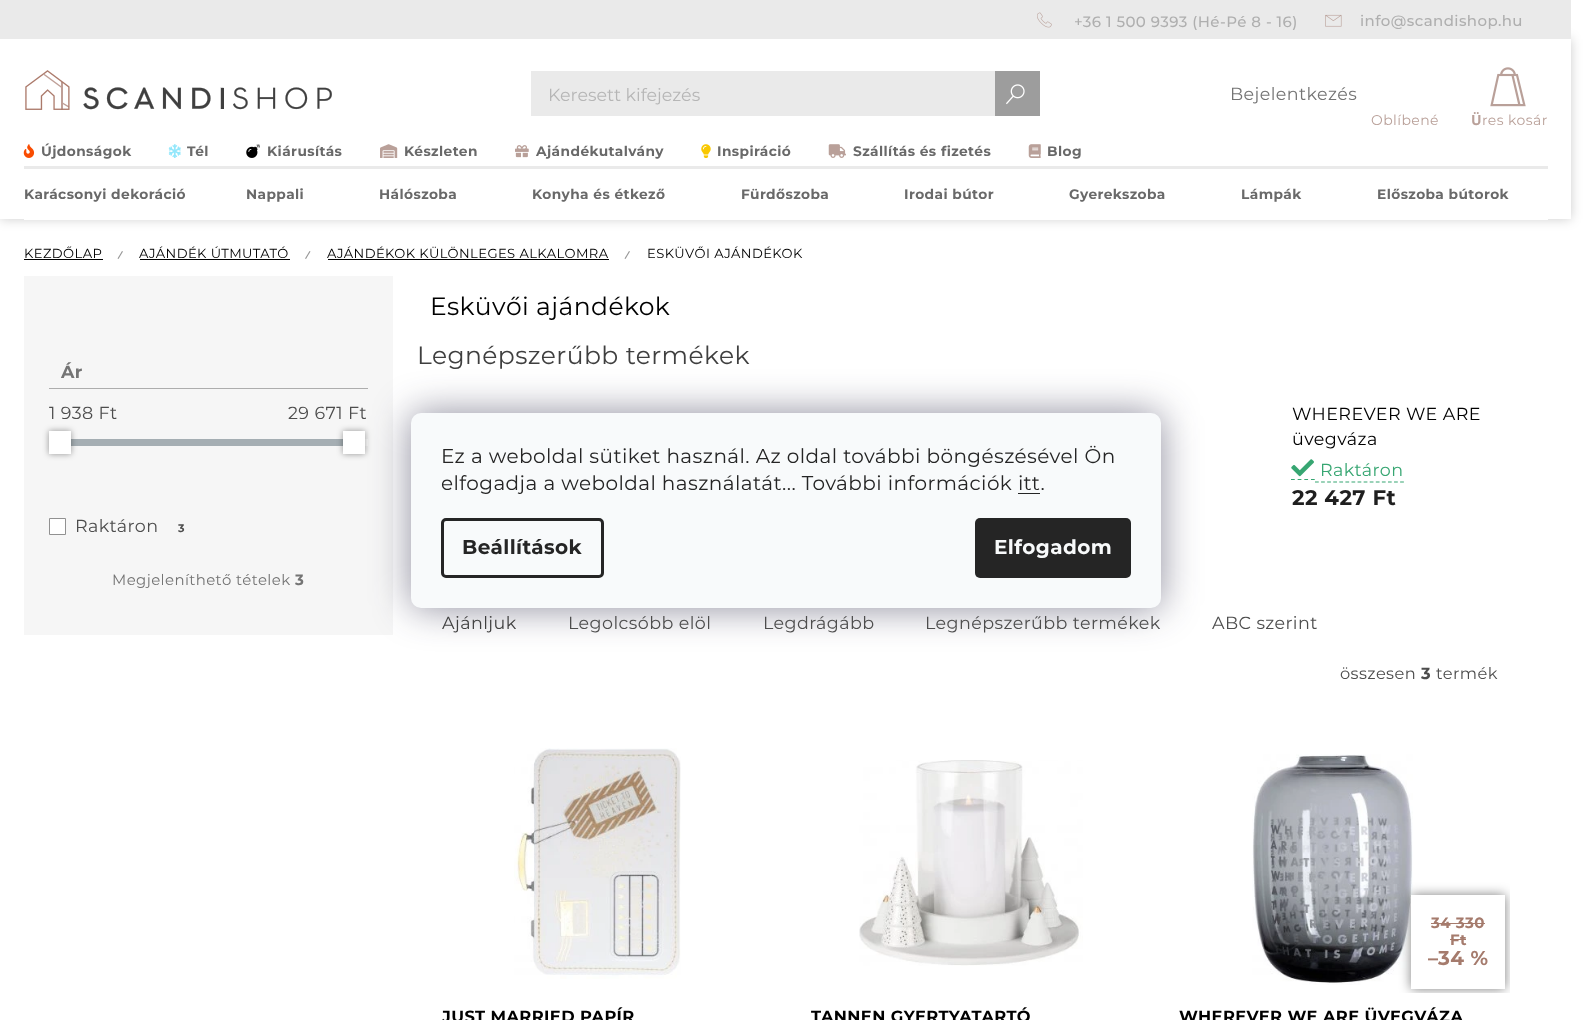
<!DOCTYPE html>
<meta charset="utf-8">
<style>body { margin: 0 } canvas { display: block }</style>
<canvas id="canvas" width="1589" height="1020"></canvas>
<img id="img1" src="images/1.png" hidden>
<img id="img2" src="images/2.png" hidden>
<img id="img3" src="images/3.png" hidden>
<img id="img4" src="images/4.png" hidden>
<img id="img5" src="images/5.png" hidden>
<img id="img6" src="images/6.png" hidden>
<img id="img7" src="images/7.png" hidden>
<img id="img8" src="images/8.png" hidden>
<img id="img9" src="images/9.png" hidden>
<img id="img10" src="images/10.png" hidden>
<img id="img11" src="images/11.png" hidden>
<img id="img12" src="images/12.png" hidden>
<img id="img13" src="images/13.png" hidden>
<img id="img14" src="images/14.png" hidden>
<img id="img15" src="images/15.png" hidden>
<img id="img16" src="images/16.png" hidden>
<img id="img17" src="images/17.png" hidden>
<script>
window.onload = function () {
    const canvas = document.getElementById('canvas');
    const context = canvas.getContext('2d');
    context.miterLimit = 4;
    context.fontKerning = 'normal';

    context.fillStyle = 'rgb(255, 255, 255)';
    context.fillRect(0, 0, 1589, 1020);
    context.fillStyle = 'rgba(0, 0, 0, 0.2)';
    context.filter = 'blur(6px)';
    context.beginPath();
    context.rect(0, 39, 1571, 180);
    context.fill();
    context.filter = 'none';
    context.fillStyle = 'rgb(234, 234, 234)';
    context.fillRect(0, 0, 1571, 39);
    context.drawImage(document.getElementById('img1'), 1037, 12, 15, 16);
    context.drawImage(document.getElementById('img2'), 1325, 14, 17, 13);
    context.fillStyle = 'rgb(255, 255, 255)';
    context.fillRect(0, 39, 1571, 180);
    context.drawImage(document.getElementById('img3'), 25, 70, 307, 40);
    context.fillStyle = 'rgb(234, 234, 234)';
    context.fillRect(531, 71, 464, 45);
    context.fillStyle = 'rgb(157, 157, 157)';
    context.fillRect(995, 71, 45, 45);
    context.drawImage(document.getElementById('img4'), 1006, 84, 19, 21);
    context.drawImage(document.getElementById('img5'), 1490, 67, 36, 40);
    context.drawImage(document.getElementById('img6'), 23, 144, 12, 14);
    context.drawImage(document.getElementById('img7'), 168, 144, 13, 14);
    context.drawImage(document.getElementById('img8'), 246, 144, 14, 14);
    context.drawImage(document.getElementById('img9'), 380, 144, 18, 14);
    context.drawImage(document.getElementById('img10'), 515, 145, 14, 13);
    context.drawImage(document.getElementById('img11'), 701, 144, 10, 14);
    context.drawImage(document.getElementById('img12'), 828, 144, 18, 14);
    context.drawImage(document.getElementById('img13'), 1028, 144, 13, 14);
    context.fillStyle = 'rgb(234, 234, 234)';
    context.fillRect(24, 166, 1524, 3);
    context.fillStyle = 'rgb(255, 255, 255)';
    context.fillRect(24, 219, 1524, 1);
    context.fillStyle = 'rgb(0, 0, 0)';
    context.fillRect(24, 259, 79, 1);
    context.fillStyle = 'rgb(151, 151, 151)';
    context.beginPath();
    context.moveTo(122, 251);
    context.lineTo(123, 251.5);
    context.lineTo(118.5, 259);
    context.lineTo(117.5, 258.5);
    context.closePath();
    context.fill();
    context.fillStyle = 'rgb(0, 0, 0)';
    context.fillRect(140, 259, 150, 1);
    context.fillStyle = 'rgb(151, 151, 151)';
    context.beginPath();
    context.moveTo(309.5, 251);
    context.lineTo(310.5, 251.5);
    context.lineTo(306, 259);
    context.lineTo(305, 258.5);
    context.closePath();
    context.fill();
    context.fillStyle = 'rgb(0, 0, 0)';
    context.fillRect(328, 259, 281, 1);
    context.fillStyle = 'rgb(151, 151, 151)';
    context.beginPath();
    context.moveTo(629, 251);
    context.lineTo(630, 251.5);
    context.lineTo(625.5, 259);
    context.lineTo(624.5, 258.5);
    context.closePath();
    context.fill();
    context.fillStyle = 'rgb(246, 246, 246)';
    context.fillRect(24, 276, 369, 359);
    context.fillStyle = 'rgb(173, 173, 173)';
    context.fillRect(49, 388, 319, 1);
    context.fillStyle = 'rgb(255, 255, 255)';
    context.fillRect(365, 439, 3, 7);
    context.fillStyle = 'rgb(165, 174, 179)';
    context.fillRect(71, 439, 272, 7);
    context.fillStyle = 'rgba(0, 0, 0, 0.4)';
    context.filter = 'blur(3px)';
    context.beginPath();
    context.rect(49, 431, 22, 23);
    context.fill();
    context.filter = 'none';
    context.fillStyle = 'rgb(255, 255, 255)';
    context.fillRect(49, 431, 22, 23);
    context.fillStyle = 'rgba(0, 0, 0, 0.4)';
    context.filter = 'blur(3px)';
    context.beginPath();
    context.rect(343, 431, 22, 23);
    context.fill();
    context.filter = 'none';
    context.fillStyle = 'rgb(255, 255, 255)';
    context.fillRect(343, 431, 22, 23);
    context.beginPath();
    context.rect(49.5, 518.5, 16, 16);
    context.fill();
    context.strokeStyle = 'rgb(145, 145, 145)';
    context.stroke();
    context.drawImage(document.getElementById('img14'), 1291, 459, 23, 18);
    context.beginPath();
    context.moveTo(1291, 479.5);
    context.lineTo(1315, 479.5);
    context.strokeStyle = 'rgb(55, 166, 114)';
    context.lineWidth = 1.2;
    context.setLineDash([3.75, 2.91]);
    context.stroke();
    context.beginPath();
    context.moveTo(1315, 482);
    context.lineTo(1404, 482);
    context.setLineDash([3.75, 2.33]);
    context.stroke();
    context.drawImage(document.getElementById('img15'), 514, 748, 167, 231);
    context.drawImage(document.getElementById('img16'), 859, 760, 224, 206);
    context.drawImage(document.getElementById('img17'), 1252, 754, 161, 231);
    context.save();
    context.beginPath();
    context.rect(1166, 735, 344, 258);
    context.clip();
    context.beginPath();
    context.moveTo(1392, 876);
    context.lineTo(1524, 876);
    context.lineTo(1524, 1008);
    context.lineTo(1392, 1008);
    context.closePath();
    context.moveTo(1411, 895);
    context.lineTo(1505, 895);
    context.lineTo(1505, 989);
    context.lineTo(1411, 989);
    context.closePath();
    context.clip('evenodd');
    context.fillStyle = 'rgba(0, 0, 0, 0.5)';
    context.filter = 'blur(6px)';
    context.beginPath();
    context.rect(1411, 895, 94, 94);
    context.fill();
    context.filter = 'none';
    context.restore();
    context.fillStyle = 'rgba(255, 255, 255, 0.85)';
    context.fillRect(1411, 895, 94, 94);
    context.fillStyle = 'rgb(165, 123, 109)';
    context.fillRect(1431, 923, 54, 1);
    context.fillRect(1450, 939, 16, 1);
    context.fillStyle = 'rgba(27, 25, 57, 0.5)';
    context.filter = 'blur(19px)';
    context.beginPath();
    context.roundRect(411, 413, 750, 195, 10);
    context.fill();
    context.filter = 'none';
    context.fillStyle = 'rgb(248, 250, 251)';
    context.beginPath();
    context.roundRect(411, 413, 750, 195, 10);
    context.fill();
    context.fillStyle = 'rgb(37, 37, 37)';
    context.fillRect(1018, 493, 22, 1);
    context.beginPath();
    context.roundRect(442.5, 519.5, 160, 57, 3.5);
    context.strokeStyle = 'rgb(37, 37, 37)';
    context.lineWidth = 3;
    context.setLineDash([]);
    context.stroke();
    context.beginPath();
    context.roundRect(975, 518, 156, 60, 5);
    context.fill();
    context.letterSpacing = '0.42px';
    context.font = '500 15px Montserrat';
    context.fillStyle = 'rgb(175, 175, 175)';
    context.fillText('+36 1 500 9393 (Hé-Pé 8 - 16)', 1074, 27);
    context.fillText('info@scandishop.hu', 1360, 26);
    context.letterSpacing = '0px';
    context.font = '17.5px Montserrat';
    context.fillStyle = 'rgb(182, 182, 182)';
    context.fillText('Keresett kifejezés', 548, 101);
    context.letterSpacing = '0.42px';
    context.fillStyle = 'rgb(116, 116, 116)';
    context.fillText('Bejelentkezés', 1230, 100);
    context.font = '14px Montserrat';
    context.fillStyle = 'rgb(185, 160, 153)';
    context.fillText('Oblíbené', 1371, 125);
    context.font = 'bold 14px Noto Sans';
    context.fillText('Ü', 1471, 125);
    context.font = '14px Montserrat';
    context.fillText('res kosár', 1482, 125);
    context.font = 'bold 13.75px Montserrat';
    context.fillStyle = 'rgb(105, 105, 105)';
    context.fillText('Újdonságok', 41, 156);
    context.fillText('Tél', 187, 156);
    context.fillText('Kiárusítás', 267, 156);
    context.fillText('Készleten', 404, 156);
    context.fillText('Ajándékutalvány', 536, 156);
    context.fillText('Inspiráció', 717, 156);
    context.fillText('Szállítás és fizetés', 853, 156);
    context.fillText('Blog', 1047, 156);
    context.fillText('Karácsonyi dekoráció', 24, 199);
    context.fillText('Nappali', 246, 199);
    context.fillText('Hálószoba', 379, 199);
    context.fillText('Konyha és étkező', 532, 199);
    context.fillText('Fürdőszoba', 741, 199);
    context.fillText('Irodai bútor', 904, 199);
    context.fillText('Gyerekszoba', 1069, 199);
    context.fillText('Lámpák', 1241, 199);
    context.fillText('Előszoba bútorok', 1377, 199);
    context.font = '13.1px Montserrat';
    context.fillStyle = 'rgb(0, 0, 0)';
    context.fillText('KEZDŐLAP', 24, 258);
    context.fillText('AJÁNDÉK ÚTMUTATÓ', 139, 258);
    context.fillText('AJÁNDÉKOK KÜLÖNLEGES ALKALOMRA', 327, 258);
    context.fillText('ESKÜVŐI AJÁNDÉKOK', 647, 258);
    context.font = 'bold 17.5px Montserrat';
    context.fillStyle = 'rgb(116, 116, 116)';
    context.fillText('Ár', 61, 378);
    context.font = '17.5px Montserrat';
    context.fillStyle = 'rgb(77, 77, 77)';
    context.fillText('1 938 Ft', 49, 419);
    context.fillText('29 671 Ft', 288, 419);
    context.fillText('Raktáron', 75, 532);
    context.font = 'bold 11px Montserrat';
    context.fillText('3', 178, 532);
    context.font = '14.9px Montserrat';
    context.fillStyle = 'rgb(116, 116, 116)';
    context.fillText('Megjeleníthető tételek', 112, 585);
    context.font = 'bold 14.9px Montserrat';
    context.fillText('3', 295, 585);
    context.font = '25px Montserrat';
    context.fillStyle = 'rgb(0, 0, 0)';
    context.fillText('Esküvői ajándékok', 430, 315);
    context.fillStyle = 'rgb(63, 63, 63)';
    context.fillText('Legnépszerűbb termékek', 417, 364);
    context.font = '17.5px Montserrat';
    context.fillStyle = 'rgb(0, 0, 0)';
    context.fillText('WHEREVER WE ARE', 1292, 420);
    context.fillText('üvegváza', 1292, 445);
    context.fillStyle = 'rgb(55, 166, 114)';
    context.fillText('Raktáron', 1320, 476);
    context.font = 'bold 21.25px Montserrat';
    context.fillStyle = 'rgb(31, 31, 31)';
    context.fillText('22 427 Ft', 1292, 505);
    context.font = '17.5px Montserrat';
    context.fillStyle = 'rgb(63, 63, 63)';
    context.fillText('Ajánljuk', 442, 629);
    context.fillStyle = 'rgb(77, 77, 77)';
    context.fillText('Legolcsóbb elöl', 568, 629);
    context.fillText('Legdrágább', 763, 629);
    context.fillText('Legnépszerűbb termékek', 925, 629);
    context.fillText('ABC szerint', 1212, 629);
    context.font = '16.25px Montserrat';
    context.fillText('összesen', 1340, 679);
    context.font = 'bold 16.25px Montserrat';
    context.fillText('3', 1421, 679);
    context.font = '16.25px Montserrat';
    context.fillText('termék', 1436, 679);
    context.font = 'bold 16.25px Montserrat';
    context.fillStyle = 'rgb(0, 0, 0)';
    context.fillText('JUST MARRIED PAPÍR', 442, 1022);
    context.fillText('TANNEN GYERTYATARTÓ', 811, 1022);
    context.font = 'bold 15px Montserrat';
    context.fillStyle = 'rgb(165, 123, 109)';
    context.fillText('34 330', 1431, 928);
    context.fillText('Ft', 1450, 945);
    context.font = 'bold 20px Montserrat';
    context.fillText('–34 %', 1428, 965);
    context.font = 'bold 16.25px Montserrat';
    context.fillStyle = 'rgb(0, 0, 0)';
    context.fillText('WHEREVER WE ARE ÜVEGVÁZA', 1179, 1022);
    context.font = '20px Montserrat';
    context.fillStyle = 'rgb(37, 37, 37)';
    context.fillText('Ez a weboldal sütiket használ. Az oldal további böngészésével Ön', 441, 463);
    context.fillText('elfogadja a weboldal használatát... További információk itt.', 441, 490);
    context.font = 'bold 20px Montserrat';
    context.fillText('Beállítások', 462, 554);
    context.fillStyle = 'rgb(248, 250, 251)';
    context.fillText('Elfogadom', 994, 554);
};
</script>
